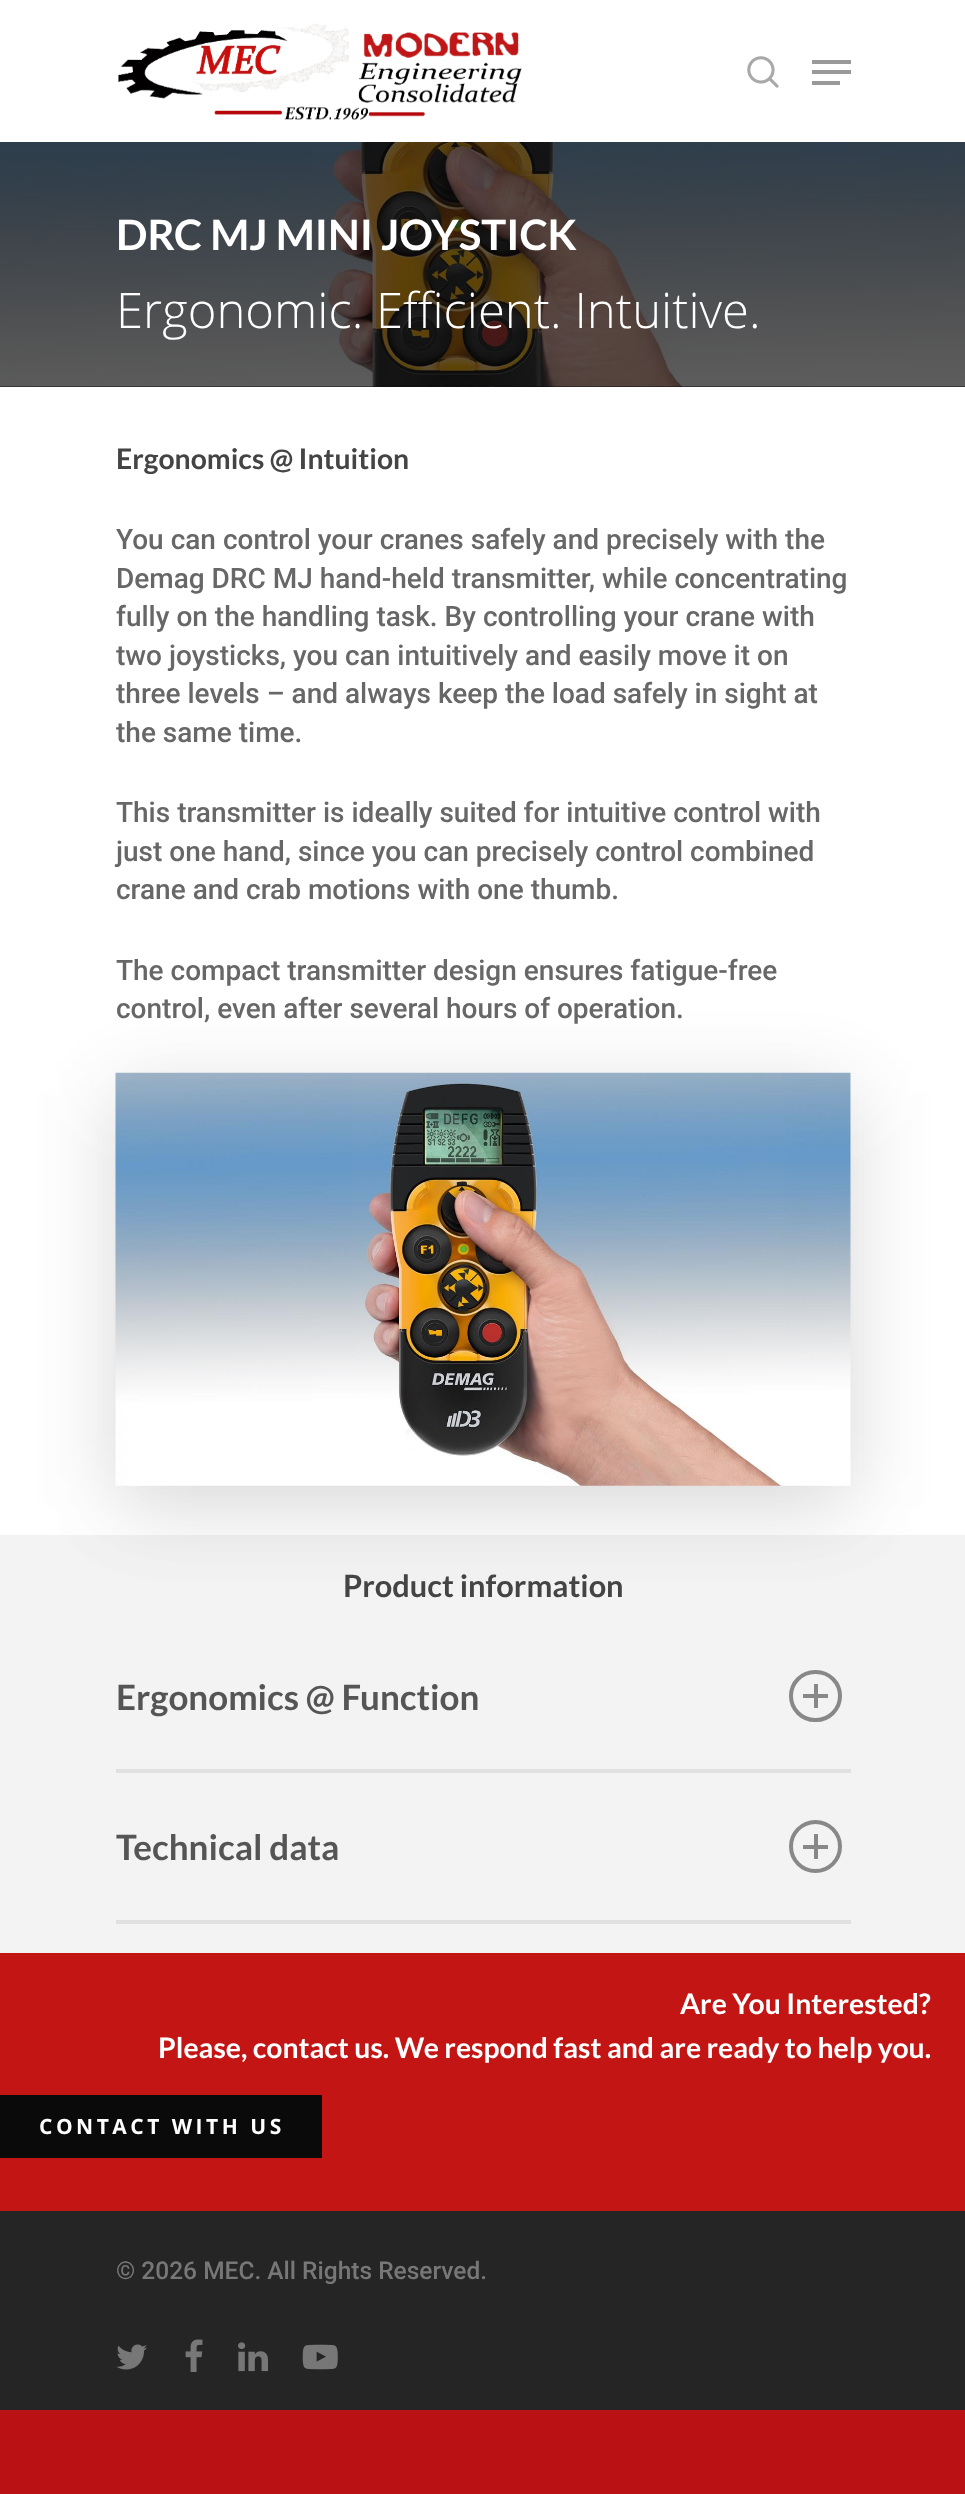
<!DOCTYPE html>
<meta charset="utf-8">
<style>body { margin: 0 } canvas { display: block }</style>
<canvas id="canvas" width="965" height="2494"></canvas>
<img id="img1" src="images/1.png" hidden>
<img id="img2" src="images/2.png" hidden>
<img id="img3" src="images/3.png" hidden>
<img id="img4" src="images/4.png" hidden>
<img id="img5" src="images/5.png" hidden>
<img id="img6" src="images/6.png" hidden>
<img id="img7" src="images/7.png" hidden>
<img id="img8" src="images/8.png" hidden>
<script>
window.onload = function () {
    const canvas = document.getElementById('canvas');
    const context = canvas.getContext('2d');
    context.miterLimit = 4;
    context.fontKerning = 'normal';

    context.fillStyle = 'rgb(186, 18, 20)';
    context.fillRect(0, 0, 965, 2494);
    context.fillStyle = 'rgb(255, 255, 255)';
    context.fillRect(0, 387, 965, 1148);
    context.fillRect(0, 0, 965, 142);
    context.drawImage(document.getElementById('img1'), 118, 23, 404, 97);
    context.drawImage(document.getElementById('img2'), 747, 56, 32, 32);
    context.fillStyle = 'rgb(153, 153, 153)';
    context.fillRect(812, 60, 39, 4);
    context.fillRect(812, 81, 28, 4);
    context.fillRect(812, 70, 39, 4);
    context.fillStyle = 'rgb(7, 7, 7)';
    context.fillRect(0, 386, 965, 1);
    context.drawImage(document.getElementById('img3'), 0, 142, 965, 245);
    context.fillStyle = 'rgb(243, 243, 243)';
    context.fillRect(0, 1535, 965, 418);
    context.fillStyle = 'rgba(0, 0, 0, 0.08)';
    context.filter = 'blur(39.5px)';
    context.beginPath();
    context.rect(116, 1096, 735, 413);
    context.fill();
    context.filter = 'none';
    context.filter = 'blur(44px)';
    context.beginPath();
    context.rect(116, 1090, 735, 413);
    context.fill();
    context.filter = 'none';
    context.drawImage(document.getElementById('img4'), 115, 1072, 736, 414);
    context.fillStyle = 'rgb(224, 224, 224)';
    context.fillRect(116, 1769, 735, 4);
    context.beginPath();
    context.roundRect(791, 1672, 49, 48, 24);
    context.strokeStyle = 'rgb(136, 136, 136)';
    context.lineWidth = 4;
    context.stroke();
    context.fillStyle = 'rgb(136, 136, 136)';
    context.fillRect(803, 1694, 25, 4);
    context.fillRect(814, 1684, 4, 24);
    context.fillStyle = 'rgb(224, 224, 224)';
    context.fillRect(116, 1920, 735, 4);
    context.beginPath();
    context.arc(815.5, 1846.5, 24.5, 0, 2 * Math.PI);
    context.stroke();
    context.fillStyle = 'rgb(136, 136, 136)';
    context.fillRect(803, 1845, 25, 4);
    context.fillRect(814, 1834, 4, 25);
    context.fillStyle = 'rgb(196, 21, 21)';
    context.fillRect(0, 1953, 965, 258);
    context.fillStyle = 'rgb(10, 10, 10)';
    context.fillRect(0, 2095, 322, 63);
    context.fillStyle = 'rgb(37, 37, 37)';
    context.fillRect(0, 2211, 965, 199);
    context.drawImage(document.getElementById('img5'), 116, 2344, 31, 26);
    context.drawImage(document.getElementById('img6'), 185, 2339, 18, 33);
    context.drawImage(document.getElementById('img7'), 238, 2342, 30, 30);
    context.drawImage(document.getElementById('img8'), 302, 2344, 36, 26);
    context.font = 'bold 42px Lato';
    context.fillStyle = 'rgb(255, 255, 255)';
    context.fillText('DRC MJ MINI JOYSTICK', 116, 250);
    context.font = '300 49px Open Sans';
    context.fillText('Ergonomic. Efficient. Intuitive.', 116, 328);
    context.font = 'bold 28.35px Lato';
    context.fillStyle = 'rgb(68, 68, 68)';
    context.fillText('Ergonomics @ Intuition', 116, 469);
    context.font = '500 28px Roboto';
    context.fillStyle = 'rgb(103, 103, 103)';
    context.fillText('You can control your cranes safely and precisely with the', 116, 549);
    context.fillText('Demag DRC MJ hand-held transmitter, while concentrating', 116, 588);
    context.fillText('fully on the handling task. By controlling your crane with', 116, 626);
    context.fillText('two joysticks, you can intuitively and easily move it on', 116, 665);
    context.fillText('three levels – and always keep the load safely in sight at', 116, 703);
    context.fillText('the same time.', 116, 742);
    context.fillText('This transmitter is ideally suited for intuitive control with', 116, 822);
    context.fillText('just one hand, since you can precisely control combined', 116, 861);
    context.fillText('crane and crab motions with one thumb.', 116, 899);
    context.fillText('The compact transmitter design ensures fatigue-free', 116, 980);
    context.fillText('control, even after several hours of operation.', 116, 1018);
    context.font = 'bold 30.75px Lato';
    context.fillStyle = 'rgb(68, 68, 68)';
    context.fillText('Product information', 343, 1597);
    context.font = 'bold 35px Lato';
    context.fillStyle = 'rgb(85, 85, 85)';
    context.fillText('Ergonomics @ Function', 116, 1710);
    context.fillText('Technical data', 116, 1860);
    context.font = 'bold 28.35px Lato';
    context.fillStyle = 'rgb(255, 255, 255)';
    context.fillText('Are You Interested?', 680, 2014);
    context.fillText('Please, contact us. We respond fast and are ready to help you.', 158, 2058);
    context.letterSpacing = '3.5px';
    context.font = 'bold 21px Open Sans';
    context.fillText('CONTACT WITH US', 39, 2134);
    context.letterSpacing = '0px';
    context.font = '500 24.5px Roboto';
    context.fillStyle = 'rgb(119, 119, 119)';
    context.fillText('© 2026 MEC. All Rights Reserved.', 116, 2279);
};
</script>
